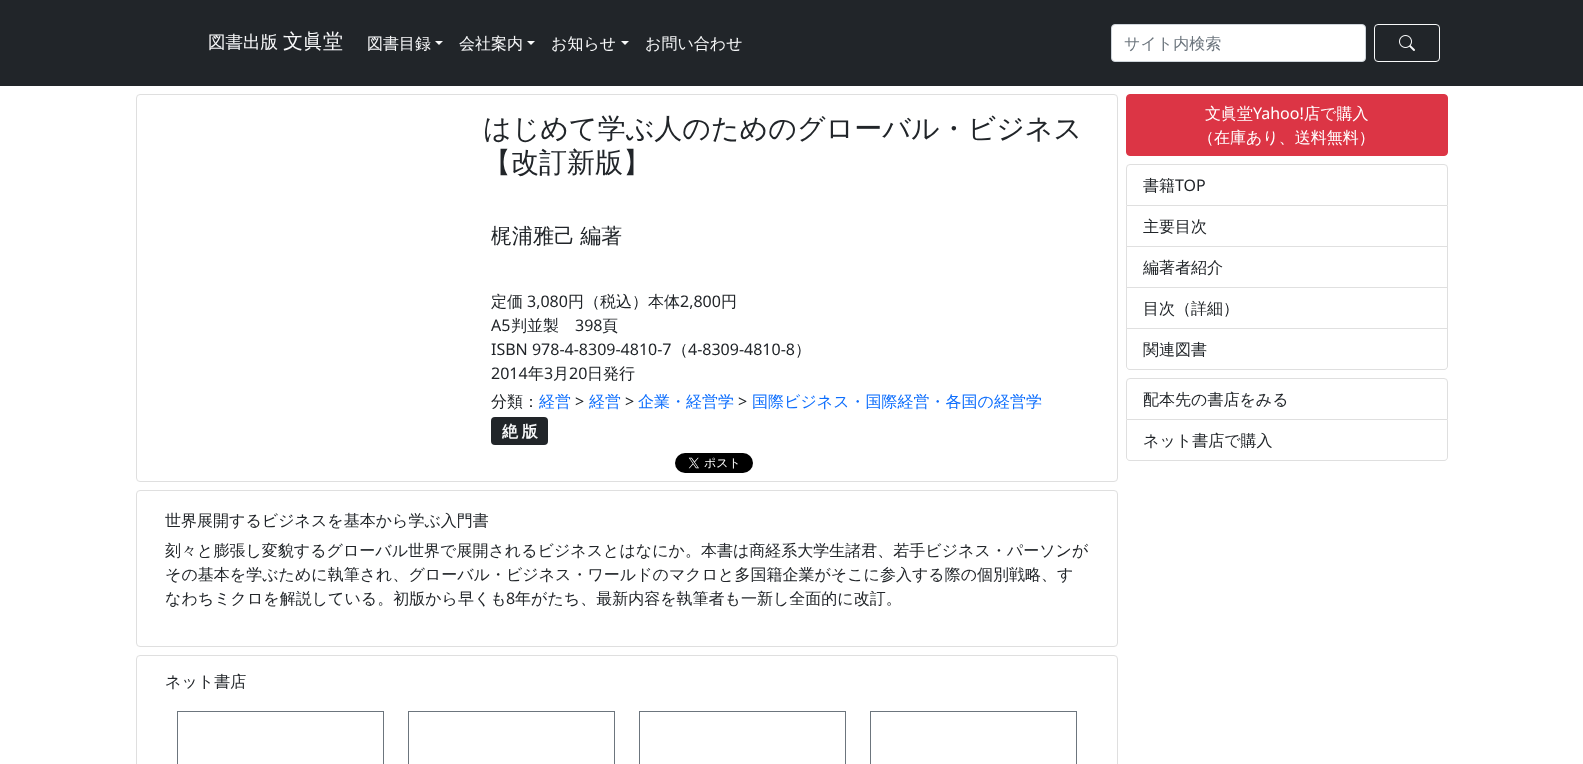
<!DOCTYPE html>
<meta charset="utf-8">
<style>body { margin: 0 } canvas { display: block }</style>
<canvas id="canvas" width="1583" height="764"></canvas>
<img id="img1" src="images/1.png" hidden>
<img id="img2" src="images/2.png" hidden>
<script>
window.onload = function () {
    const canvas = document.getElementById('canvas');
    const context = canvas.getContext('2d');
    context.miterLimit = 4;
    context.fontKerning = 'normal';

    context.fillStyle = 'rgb(255, 255, 255)';
    context.fillRect(0, 0, 1583, 764);
    context.fillStyle = 'rgb(33, 37, 41)';
    context.fillRect(0, 0, 1583, 86);
    context.fillStyle = 'rgb(248, 249, 250)';
    context.beginPath();
    context.moveTo(435, 41);
    context.lineTo(443, 41);
    context.lineTo(439, 45);
    context.closePath();
    context.fill();
    context.beginPath();
    context.moveTo(527, 41);
    context.lineTo(535, 41);
    context.lineTo(531, 45);
    context.closePath();
    context.fill();
    context.beginPath();
    context.moveTo(621, 41);
    context.lineTo(629, 41);
    context.lineTo(625, 45);
    context.closePath();
    context.fill();
    context.fillStyle = 'rgb(255, 255, 255)';
    context.beginPath();
    context.roundRect(1111.5, 24.5, 254, 37, 3.5);
    context.fill();
    context.strokeStyle = 'rgb(206, 212, 218)';
    context.stroke();
    context.beginPath();
    context.roundRect(1374.5, 24.5, 65, 37, 3.5);
    context.strokeStyle = 'rgb(248, 249, 250)';
    context.stroke();
    context.drawImage(document.getElementById('img1'), 1399, 35, 16, 16);
    context.beginPath();
    context.roundRect(136.5, 94.5, 981, 387, 3.5);
    context.strokeStyle = 'rgb(223, 223, 223)';
    context.stroke();
    context.fillStyle = 'rgb(33, 37, 41)';
    context.beginPath();
    context.roundRect(491, 417, 57, 28, 4);
    context.fill();
    context.drawImage(document.getElementById('img2'), 675, 453, 78, 20);
    context.beginPath();
    context.roundRect(136.5, 490.5, 981, 156, 3.5);
    context.stroke();
    context.beginPath();
    context.roundRect(136.5, 655.5, 981, 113, 3.5);
    context.stroke();
    context.strokeStyle = 'rgb(108, 117, 125)';
    context.strokeRect(177.5, 711.5, 206, 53);
    context.strokeRect(408.5, 711.5, 206, 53);
    context.strokeRect(639.5, 711.5, 206, 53);
    context.strokeRect(870.5, 711.5, 206, 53);
    context.fillStyle = 'rgb(220, 53, 69)';
    context.beginPath();
    context.roundRect(1126.5, 94.5, 321, 61, 3.5);
    context.fill();
    context.strokeStyle = 'rgb(220, 53, 69)';
    context.stroke();
    context.beginPath();
    context.roundRect(1126.5, 164.5, 321, 41, [3.5, 3.5, 0, 0]);
    context.strokeStyle = 'rgb(223, 223, 223)';
    context.stroke();
    context.fillStyle = 'rgb(223, 223, 223)';
    context.beginPath();
    context.moveTo(1448, 206);
    context.lineTo(1448, 247);
    context.lineTo(1447, 246);
    context.lineTo(1447, 206);
    context.closePath();
    context.fill();
    context.fillStyle = 'rgba(0, 0, 0, 0.12)';
    context.beginPath();
    context.moveTo(1448, 247);
    context.lineTo(1126, 247);
    context.lineTo(1127, 246);
    context.lineTo(1447, 246);
    context.closePath();
    context.fill();
    context.beginPath();
    context.moveTo(1126, 247);
    context.lineTo(1126, 206);
    context.lineTo(1127, 206);
    context.lineTo(1127, 246);
    context.closePath();
    context.fill();
    context.fillStyle = 'rgb(223, 223, 223)';
    context.beginPath();
    context.moveTo(1448, 247);
    context.lineTo(1448, 288);
    context.lineTo(1447, 287);
    context.lineTo(1447, 247);
    context.closePath();
    context.fill();
    context.fillStyle = 'rgba(0, 0, 0, 0.12)';
    context.beginPath();
    context.moveTo(1448, 288);
    context.lineTo(1126, 288);
    context.lineTo(1127, 287);
    context.lineTo(1447, 287);
    context.closePath();
    context.fill();
    context.beginPath();
    context.moveTo(1126, 288);
    context.lineTo(1126, 247);
    context.lineTo(1127, 247);
    context.lineTo(1127, 287);
    context.closePath();
    context.fill();
    context.fillStyle = 'rgb(223, 223, 223)';
    context.beginPath();
    context.moveTo(1448, 288);
    context.lineTo(1448, 329);
    context.lineTo(1447, 328);
    context.lineTo(1447, 288);
    context.closePath();
    context.fill();
    context.fillStyle = 'rgba(0, 0, 0, 0.12)';
    context.beginPath();
    context.moveTo(1448, 329);
    context.lineTo(1126, 329);
    context.lineTo(1127, 328);
    context.lineTo(1447, 328);
    context.closePath();
    context.fill();
    context.beginPath();
    context.moveTo(1126, 329);
    context.lineTo(1126, 288);
    context.lineTo(1127, 288);
    context.lineTo(1127, 328);
    context.closePath();
    context.fill();
    context.fillStyle = 'rgb(223, 223, 223)';
    context.beginPath();
    context.moveTo(1126, 329);
    context.lineTo(1448, 329);
    context.lineTo(1448, 366);
    context.bezierCurveTo(1448, 368, 1446, 370, 1444, 370);
    context.lineTo(1130, 370);
    context.bezierCurveTo(1128, 370, 1126, 368, 1126, 366);
    context.closePath();
    context.moveTo(1127, 329);
    context.lineTo(1447, 329);
    context.lineTo(1447, 366);
    context.bezierCurveTo(1447, 368, 1446, 369, 1444, 369);
    context.lineTo(1130, 369);
    context.bezierCurveTo(1128, 369, 1127, 368, 1127, 366);
    context.closePath();
    context.fill('evenodd');
    context.beginPath();
    context.roundRect(1126.5, 378.5, 321, 41, [3.5, 3.5, 0, 0]);
    context.stroke();
    context.beginPath();
    context.moveTo(1126, 420);
    context.lineTo(1448, 420);
    context.lineTo(1448, 457);
    context.bezierCurveTo(1448, 459, 1446, 461, 1444, 461);
    context.lineTo(1130, 461);
    context.bezierCurveTo(1128, 461, 1126, 459, 1126, 457);
    context.closePath();
    context.moveTo(1127, 420);
    context.lineTo(1447, 420);
    context.lineTo(1447, 457);
    context.bezierCurveTo(1447, 459, 1446, 460, 1444, 460);
    context.lineTo(1130, 460);
    context.bezierCurveTo(1128, 460, 1127, 459, 1127, 457);
    context.closePath();
    context.fill('evenodd');
    context.font = '500 17.5px WenQuanYi Zen Hei';
    context.fillStyle = 'rgb(248, 249, 250)';
    context.fillText('図書出版', 208, 48);
    context.font = '500 20px WenQuanYi Zen Hei';
    context.fillText('文眞堂', 283, 48);
    context.font = '500 16px WenQuanYi Zen Hei';
    context.fillText('図書目録', 367, 49);
    context.fillText('会社案内', 459, 49);
    context.fillText('お知らせ', 551, 49);
    context.fillText('お問い合わせ', 645, 49);
    context.fillStyle = 'rgb(108, 117, 125)';
    context.fillText('サイト内検索', 1124, 49);
    context.font = '500 28px WenQuanYi Zen Hei';
    context.fillStyle = 'rgb(33, 37, 41)';
    context.fillText('はじめて学ぶ人のためのグローバル・ビジネス', 483, 138);
    context.fillText('【改訂新版】', 483, 172);
    context.wordSpacing = '-1px';
    context.font = '500 21px WenQuanYi Zen Hei';
    context.fillText('梶浦雅己 編著', 491, 243);
    context.wordSpacing = '0px';
    context.font = '500 16px WenQuanYi Zen Hei';
    context.fillText('定価', 491, 307);
    context.font = '16px Noto Sans';
    context.fillText('3,080', 527, 307);
    context.font = '500 16px WenQuanYi Zen Hei';
    context.fillText('円（税込）本体', 568, 307);
    context.font = '16px Noto Sans';
    context.fillText('2,800', 680, 307);
    context.font = '500 16px WenQuanYi Zen Hei';
    context.fillText('円', 721, 307);
    context.font = '16px Noto Sans';
    context.fillText('A5', 491, 331);
    context.font = '500 16px WenQuanYi Zen Hei';
    context.fillText('判並製', 511, 331);
    context.font = '16px Noto Sans';
    context.fillText('398', 575, 331);
    context.font = '500 16px WenQuanYi Zen Hei';
    context.fillText('頁', 602, 331);
    context.font = '16px Noto Sans';
    context.fillText('ISBN 978-4-8309-4810-7', 491, 355);
    context.font = '500 16px WenQuanYi Zen Hei';
    context.fillText('（', 672, 355);
    context.font = '16px Noto Sans';
    context.fillText('4-8309-4810-8', 688, 355);
    context.font = '500 16px WenQuanYi Zen Hei';
    context.fillText('）', 795, 355);
    context.font = '16px Noto Sans';
    context.fillText('2014', 491, 379);
    context.font = '500 16px WenQuanYi Zen Hei';
    context.fillText('年', 528, 379);
    context.font = '16px Noto Sans';
    context.fillText('3', 544, 379);
    context.font = '500 16px WenQuanYi Zen Hei';
    context.fillText('月', 553, 379);
    context.font = '16px Noto Sans';
    context.fillText('20', 569, 379);
    context.font = '500 16px WenQuanYi Zen Hei';
    context.fillText('日発行', 587, 379);
    context.fillText('分類：', 491, 407);
    context.fillStyle = 'rgb(13, 110, 253)';
    context.fillText('経営', 539, 407);
    context.font = '16px Noto Sans';
    context.fillStyle = 'rgb(33, 37, 41)';
    context.fillText('>', 575, 407);
    context.font = '500 16px WenQuanYi Zen Hei';
    context.fillStyle = 'rgb(13, 110, 253)';
    context.fillText('経営', 589, 407);
    context.font = '16px Noto Sans';
    context.fillStyle = 'rgb(33, 37, 41)';
    context.fillText('>', 625, 407);
    context.font = '500 16px WenQuanYi Zen Hei';
    context.fillStyle = 'rgb(13, 110, 253)';
    context.fillText('企業・経営学', 638, 407);
    context.font = '16px Noto Sans';
    context.fillStyle = 'rgb(33, 37, 41)';
    context.fillText('>', 738, 407);
    context.font = '500 16px WenQuanYi Zen Hei';
    context.fillStyle = 'rgb(13, 110, 253)';
    context.fillText('国際ビジネス・国際経営・各国の経営学', 752, 407);
    context.wordSpacing = '-1px';
    context.font = 'bold 16px WenQuanYi Zen Hei';
    context.fillStyle = 'rgb(248, 249, 250)';
    context.fillText('絶 版', 502, 437);
    context.wordSpacing = '0px';
    context.font = '500 16px WenQuanYi Zen Hei';
    context.fillStyle = 'rgb(33, 37, 41)';
    context.fillText('世界展開するビジネスを基本から学ぶ入門書', 165, 526);
    context.fillText('刻々と膨張し変貌するグローバル世界で展開されるビジネスとはなにか。本書は商経系大学生諸君、若手ビジネス・パーソンが', 165, 556);
    context.fillText('その基本を学ぶために執筆され、グローバル・ビジネス・ワールドのマクロと多国籍企業がそこに参入する際の個別戦略、す', 165, 580);
    context.fillText('なわちミクロを解説している。初版から早くも', 165, 604);
    context.font = '16px Noto Sans';
    context.fillText('8', 506, 604);
    context.font = '500 16px WenQuanYi Zen Hei';
    context.fillText('年がたち、最新内容を執筆者も一新し全面的に改訂。', 515, 604);
    context.fillText('ネット書店', 165, 687);
    context.fillStyle = 'rgb(255, 255, 255)';
    context.fillText('文眞堂', 1205, 119);
    context.font = '16px Noto Sans';
    context.fillText('Yahoo!', 1253, 119);
    context.font = '500 16px WenQuanYi Zen Hei';
    context.fillText('店で購入', 1304, 119);
    context.fillText('（在庫あり、送料無料）', 1198, 143);
    context.fillStyle = 'rgb(33, 37, 41)';
    context.fillText('書籍', 1143, 191);
    context.font = '16px Noto Sans';
    context.fillText('TOP', 1175, 191);
    context.font = '500 16px WenQuanYi Zen Hei';
    context.fillText('主要目次', 1143, 232);
    context.fillText('編著者紹介', 1143, 273);
    context.fillText('目次（詳細）', 1143, 314);
    context.fillText('関連図書', 1143, 355);
    context.fillText('配本先の書店をみる', 1143, 405);
    context.fillText('ネット書店で購入', 1143, 446);
};
</script>
